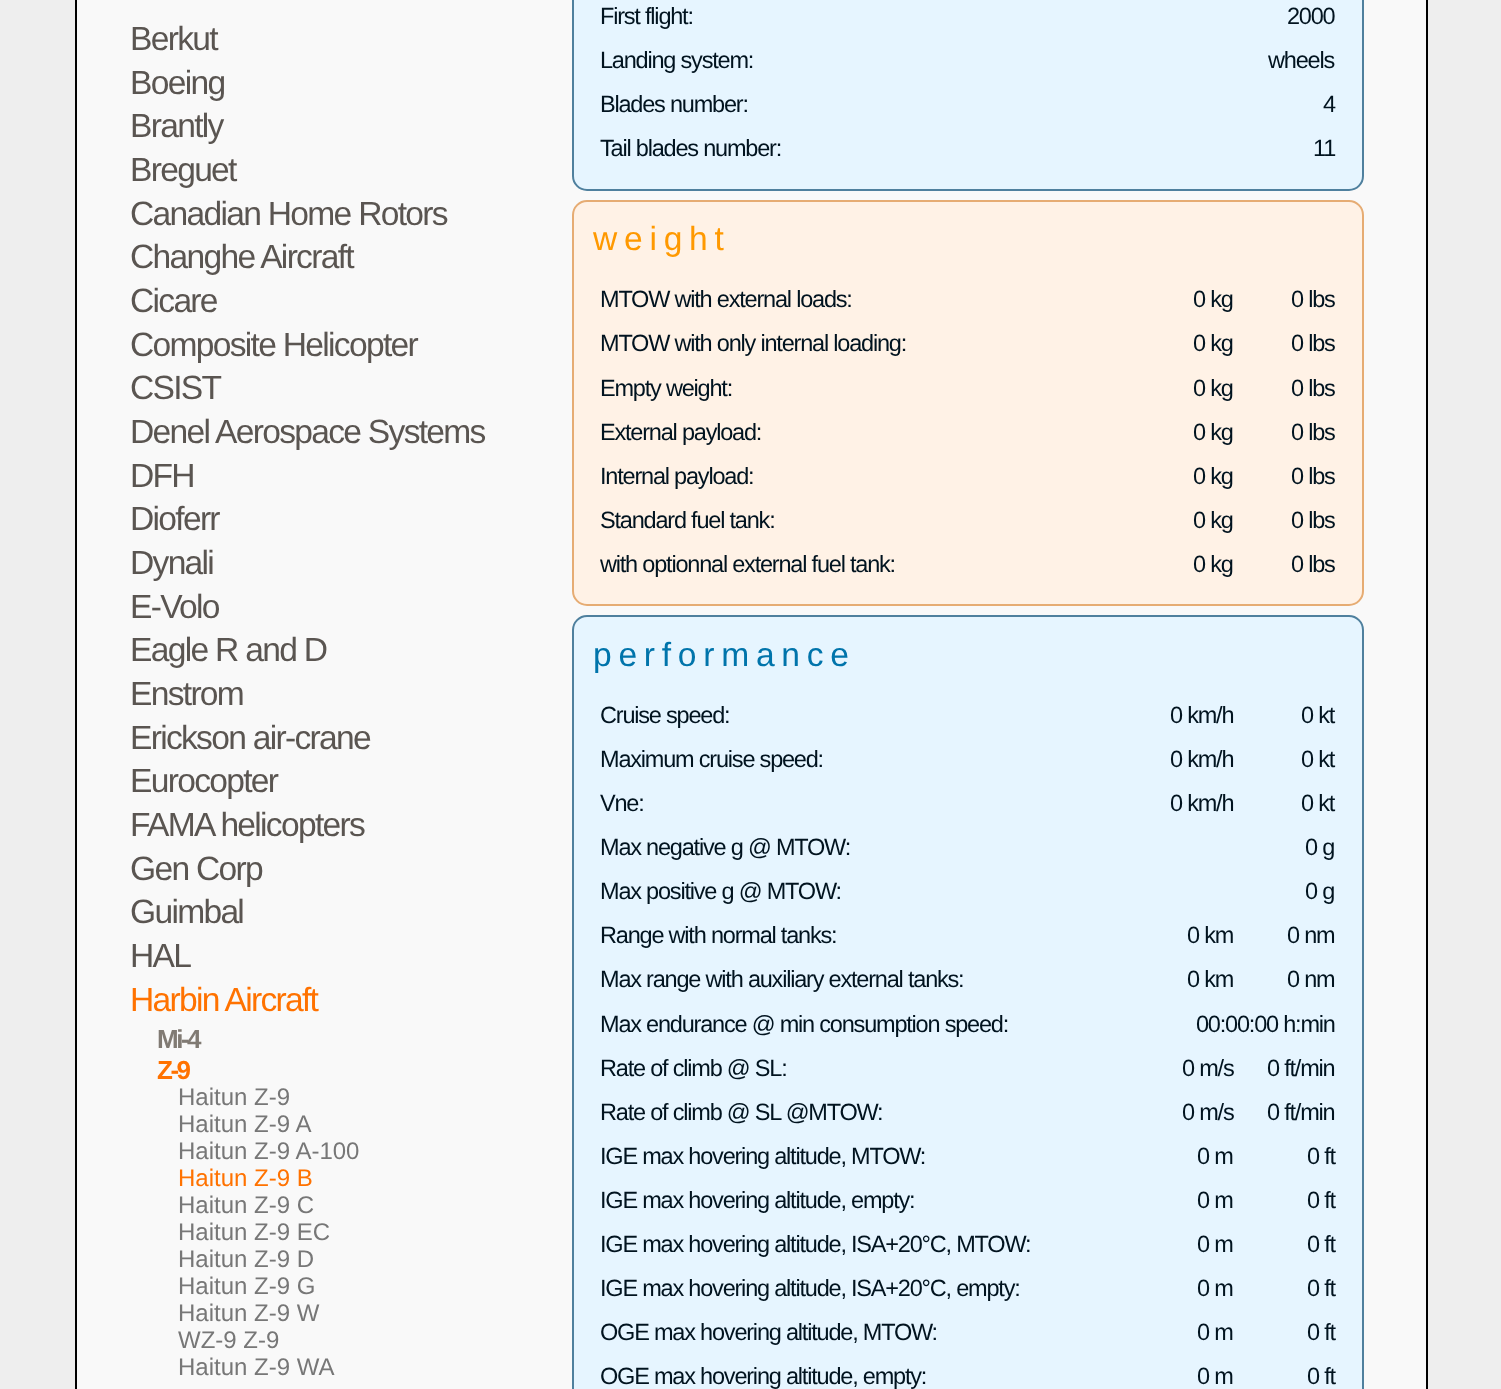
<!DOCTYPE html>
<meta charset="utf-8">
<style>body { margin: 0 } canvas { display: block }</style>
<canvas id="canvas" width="1501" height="1389"></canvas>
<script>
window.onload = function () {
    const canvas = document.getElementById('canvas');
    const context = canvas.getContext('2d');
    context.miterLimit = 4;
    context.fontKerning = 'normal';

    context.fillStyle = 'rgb(238, 238, 238)';
    context.fillRect(0, 0, 1501, 1389);
    context.fillStyle = 'rgb(249, 249, 249)';
    context.beginPath();
    context.rect(76, -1, 1351, 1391);
    context.fill();
    context.strokeStyle = 'rgb(0, 0, 0)';
    context.lineWidth = 2;
    context.stroke();
    context.fillStyle = 'rgb(230, 245, 255)';
    context.beginPath();
    context.roundRect(573, -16, 790, 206, 14);
    context.fill();
    context.strokeStyle = 'rgb(79, 128, 158)';
    context.stroke();
    context.fillStyle = 'rgb(255, 242, 230)';
    context.beginPath();
    context.roundRect(573, 201, 790, 404, 14);
    context.fill();
    context.strokeStyle = 'rgb(230, 172, 115)';
    context.stroke();
    context.fillStyle = 'rgb(230, 245, 255)';
    context.beginPath();
    context.roundRect(573, 616, 790, 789, 14);
    context.fill();
    context.strokeStyle = 'rgb(79, 128, 158)';
    context.stroke();
    context.letterSpacing = '-1.7px';
    context.font = '33.6px Liberation Sans';
    context.fillStyle = 'rgb(90, 85, 81)';
    context.fillText('Berkut', 130, 50);
    context.fillText('Boeing', 130, 94);
    context.fillText('Brantly', 130, 137);
    context.fillText('Breguet', 130, 181);
    context.fillText('Canadian Home Rotors', 130, 225);
    context.fillText('Changhe Aircraft', 130, 268);
    context.fillText('Cicare', 130, 312);
    context.fillText('Composite Helicopter', 130, 356);
    context.fillText('CSIST', 130, 399);
    context.fillText('Denel Aerospace Systems', 130, 443);
    context.fillText('DFH', 130, 487);
    context.fillText('Dioferr', 130, 530);
    context.fillText('Dynali', 130, 574);
    context.fillText('E-Volo', 130, 618);
    context.fillText('Eagle R and D', 130, 661);
    context.fillText('Enstrom', 130, 705);
    context.fillText('Erickson air-crane', 130, 749);
    context.fillText('Eurocopter', 130, 792);
    context.fillText('FAMA helicopters', 130, 836);
    context.fillText('Gen Corp', 130, 880);
    context.fillText('Guimbal', 130, 923);
    context.fillText('HAL', 130, 967);
    context.fillStyle = 'rgb(255, 114, 0)';
    context.fillText('Harbin Aircraft', 130, 1011);
    context.letterSpacing = '-2.5px';
    context.font = 'bold 26px Liberation Sans';
    context.fillStyle = 'rgb(128, 122, 115)';
    context.fillText('Mi-4', 157, 1048);
    context.fillStyle = 'rgb(255, 114, 0)';
    context.fillText('Z-9', 157, 1079);
    context.letterSpacing = '0px';
    context.font = '24px Liberation Sans';
    context.fillStyle = 'rgb(119, 119, 119)';
    context.fillText('Haitun Z-9', 178, 1105);
    context.fillText('Haitun Z-9 A', 178, 1132);
    context.fillText('Haitun Z-9 A-100', 178, 1159);
    context.fillStyle = 'rgb(255, 114, 0)';
    context.fillText('Haitun Z-9 B', 178, 1186);
    context.fillStyle = 'rgb(119, 119, 119)';
    context.fillText('Haitun Z-9 C', 178, 1213);
    context.fillText('Haitun Z-9 EC', 178, 1240);
    context.fillText('Haitun Z-9 D', 178, 1267);
    context.fillText('Haitun Z-9 G', 178, 1294);
    context.fillText('Haitun Z-9 W', 178, 1321);
    context.fillText('WZ-9 Z-9', 178, 1348);
    context.fillText('Haitun Z-9 WA', 178, 1375);
    context.letterSpacing = '-1.2px';
    context.font = '23.5px Liberation Sans';
    context.fillStyle = 'rgb(1, 19, 31)';
    context.fillText('First flight:', 600, 24);
    context.fillText('2000', 1287, 24);
    context.fillText('Landing system:', 600, 68);
    context.fillText('wheels', 1268, 68);
    context.fillText('Blades number:', 600, 112);
    context.fillText('4', 1323, 112);
    context.fillText('Tail blades number:', 600, 156);
    context.fillText('11', 1313, 156);
    context.letterSpacing = '6.75px';
    context.font = '33.6px Liberation Sans';
    context.fillStyle = 'rgb(255, 153, 0)';
    context.fillText('weight', 593, 250);
    context.letterSpacing = '-1.2px';
    context.font = '23.5px Liberation Sans';
    context.fillStyle = 'rgb(1, 19, 31)';
    context.fillText('MTOW with external loads:', 600, 307);
    context.fillText('0 kg', 1193, 307);
    context.fillText('0 lbs', 1291, 307);
    context.fillText('MTOW with only internal loading:', 600, 351);
    context.fillText('0 kg', 1193, 351);
    context.fillText('0 lbs', 1291, 351);
    context.fillText('Empty weight:', 600, 396);
    context.fillText('0 kg', 1193, 396);
    context.fillText('0 lbs', 1291, 396);
    context.fillText('External payload:', 600, 440);
    context.fillText('0 kg', 1193, 440);
    context.fillText('0 lbs', 1291, 440);
    context.fillText('Internal payload:', 600, 484);
    context.fillText('0 kg', 1193, 484);
    context.fillText('0 lbs', 1291, 484);
    context.fillText('Standard fuel tank:', 600, 528);
    context.fillText('0 kg', 1193, 528);
    context.fillText('0 lbs', 1291, 528);
    context.fillText('with optionnal external fuel tank:', 600, 572);
    context.fillText('0 kg', 1193, 572);
    context.fillText('0 lbs', 1291, 572);
    context.letterSpacing = '6.75px';
    context.font = '33.6px Liberation Sans';
    context.fillStyle = 'rgb(0, 116, 171)';
    context.fillText('performance', 593, 666);
    context.letterSpacing = '-1.2px';
    context.font = '23.5px Liberation Sans';
    context.fillStyle = 'rgb(1, 19, 31)';
    context.fillText('Cruise speed:', 600, 723);
    context.fillText('0 km/h', 1170, 723);
    context.fillText('0 kt', 1301, 723);
    context.fillText('Maximum cruise speed:', 600, 767);
    context.fillText('0 km/h', 1170, 767);
    context.fillText('0 kt', 1301, 767);
    context.fillText('Vne:', 600, 811);
    context.fillText('0 km/h', 1170, 811);
    context.fillText('0 kt', 1301, 811);
    context.fillText('Max negative g @ MTOW:', 600, 855);
    context.fillText('0 g', 1305, 855);
    context.fillText('Max positive g @ MTOW:', 600, 899);
    context.fillText('0 g', 1305, 899);
    context.fillText('Range with normal tanks:', 600, 943);
    context.fillText('0 km', 1187, 943);
    context.fillText('0 nm', 1287, 943);
    context.fillText('Max range with auxiliary external tanks:', 600, 987);
    context.fillText('0 km', 1187, 987);
    context.fillText('0 nm', 1287, 987);
    context.fillText('Max endurance @ min consumption speed:', 600, 1032);
    context.fillText('00:00:00 h:min', 1196, 1032);
    context.fillText('Rate of climb @ SL:', 600, 1076);
    context.fillText('0 m/s', 1182, 1076);
    context.fillText('0 ft/min', 1267, 1076);
    context.fillText('Rate of climb @ SL @MTOW:', 600, 1120);
    context.fillText('0 m/s', 1182, 1120);
    context.fillText('0 ft/min', 1267, 1120);
    context.fillText('IGE max hovering altitude, MTOW:', 600, 1164);
    context.fillText('0 m', 1197, 1164);
    context.fillText('0 ft', 1307, 1164);
    context.fillText('IGE max hovering altitude, empty:', 600, 1208);
    context.fillText('0 m', 1197, 1208);
    context.fillText('0 ft', 1307, 1208);
    context.fillText('IGE max hovering altitude, ISA+20°C, MTOW:', 600, 1252);
    context.fillText('0 m', 1197, 1252);
    context.fillText('0 ft', 1307, 1252);
    context.fillText('IGE max hovering altitude, ISA+20°C, empty:', 600, 1296);
    context.fillText('0 m', 1197, 1296);
    context.fillText('0 ft', 1307, 1296);
    context.fillText('OGE max hovering altitude, MTOW:', 600, 1340);
    context.fillText('0 m', 1197, 1340);
    context.fillText('0 ft', 1307, 1340);
    context.fillText('OGE max hovering altitude, empty:', 600, 1384);
    context.fillText('0 m', 1197, 1384);
    context.fillText('0 ft', 1307, 1384);
};
</script>
